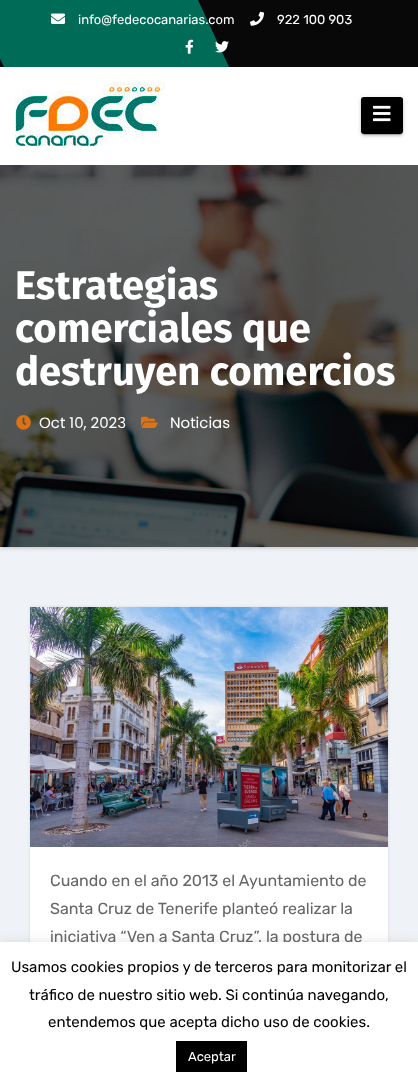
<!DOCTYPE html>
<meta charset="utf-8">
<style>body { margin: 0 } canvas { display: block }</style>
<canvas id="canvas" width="418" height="1084"></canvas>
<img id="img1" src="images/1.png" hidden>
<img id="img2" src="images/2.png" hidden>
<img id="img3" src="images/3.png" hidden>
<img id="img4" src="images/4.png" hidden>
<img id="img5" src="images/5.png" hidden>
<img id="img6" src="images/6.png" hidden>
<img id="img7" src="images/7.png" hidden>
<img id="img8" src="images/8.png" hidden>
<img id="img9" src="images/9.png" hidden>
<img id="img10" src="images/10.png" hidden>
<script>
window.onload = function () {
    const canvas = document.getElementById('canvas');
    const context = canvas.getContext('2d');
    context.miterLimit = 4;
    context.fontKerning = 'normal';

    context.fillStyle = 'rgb(239, 242, 247)';
    context.fillRect(0, 0, 418, 1084);
    context.fillStyle = 'rgb(8, 8, 8)';
    context.fillRect(0, 0, 418, 67);
    context.fillStyle = 'rgb(0, 107, 87)';
    context.beginPath();
    context.moveTo(-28, 0);
    context.lineTo(198, 0);
    context.lineTo(229, 67);
    context.lineTo(4, 67);
    context.closePath();
    context.fill();
    context.drawImage(document.getElementById('img1'), 51, 13, 14, 11);
    context.drawImage(document.getElementById('img2'), 250, 11, 14, 15);
    context.drawImage(document.getElementById('img3'), 185, 39, 9, 15);
    context.drawImage(document.getElementById('img4'), 215, 41, 14, 12);
    context.fillStyle = 'rgb(170, 170, 170)';
    context.filter = 'blur(2.5px)';
    context.beginPath();
    context.rect(0, 165, 418, 382);
    context.fill();
    context.filter = 'none';
    context.fillStyle = 'rgb(255, 255, 255)';
    context.fillRect(0, 67, 418, 98);
    context.drawImage(document.getElementById('img5'), 15, 82, 150, 64);
    context.fillStyle = 'rgba(0, 0, 0, 0.12)';
    context.filter = 'blur(2.5px)';
    context.beginPath();
    context.roundRect(361, 98, 42, 37, 3);
    context.fill();
    context.filter = 'none';
    context.fillStyle = 'rgba(0, 0, 0, 0.2)';
    context.filter = 'blur(0.5px)';
    context.beginPath();
    context.roundRect(363, 102, 38, 33, 1);
    context.fill();
    context.filter = 'none';
    context.fillStyle = 'rgba(0, 0, 0, 0.14)';
    context.filter = 'blur(1px)';
    context.beginPath();
    context.roundRect(361, 99, 42, 37, 3);
    context.fill();
    context.filter = 'none';
    context.fillStyle = 'rgb(0, 0, 0)';
    context.beginPath();
    context.roundRect(361, 97, 42, 37, 3);
    context.fill();
    context.drawImage(document.getElementById('img6'), 373, 105, 18, 17);
    context.drawImage(document.getElementById('img7'), 0, 165, 418, 382);
    context.drawImage(document.getElementById('img8'), 16, 415, 15, 15);
    context.drawImage(document.getElementById('img9'), 141, 416, 17, 12);
    context.fillStyle = 'rgba(0, 0, 0, 0.1)';
    context.filter = 'blur(1.5px)';
    context.beginPath();
    context.rect(30, 607, 358, 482);
    context.fill();
    context.filter = 'none';
    context.fillStyle = 'rgb(255, 255, 255)';
    context.fillRect(30, 847, 358, 95);
    context.drawImage(document.getElementById('img10'), 30, 607, 358, 240);
    context.fillStyle = 'rgba(172, 171, 171, 0.3)';
    context.filter = 'blur(5px)';
    context.beginPath();
    context.rect(0, 941, 418, 142);
    context.fill();
    context.filter = 'none';
    context.font = '13px Rubik';
    context.fillStyle = 'rgb(255, 255, 255)';
    context.fillText('info@fedecocanarias.com', 78, 24);
    context.fillText('922 100 903', 277, 24);
    context.font = 'bold 40px Fira Sans';
    context.fillText('Estrategias', 15, 299);
    context.fillText('comerciales que', 15, 342);
    context.fillText('destruyen comercios', 15, 385);
    context.font = '15px Poppins';
    context.fillText('Oct 10, 2023', 39, 428);
    context.fillText('Noticias', 170, 428);
    context.font = '16px Rubik';
    context.fillStyle = 'rgb(102, 102, 102)';
    context.fillText('Cuando en el año 2013 el Ayuntamiento de', 50, 886);
    context.fillText('Santa Cruz de Tenerife planteó realizar la', 50, 914);
    context.fillText('iniciativa “Ven a Santa Cruz”, la postura de', 50, 942);
    context.fillStyle = 'rgb(255, 255, 255)';
    context.fillRect(0, 942, 418, 142);
    context.font = '15px Rubik';
    context.fillStyle = 'rgb(0, 0, 0)';
    context.fillText('Usamos cookies propios y de terceros para monitorizar el', 11, 972);
    context.fillText('tráfico de nuestro sitio web. Si continúa navegando,', 29, 1000);
    context.fillText('entendemos que acepta dicho uso de cookies.', 48, 1027);
    context.fillRect(176, 1041, 71, 31);
    context.font = '13px Rubik';
    context.fillStyle = 'rgb(255, 255, 255)';
    context.fillText('Aceptar', 188, 1061);
};
</script>
